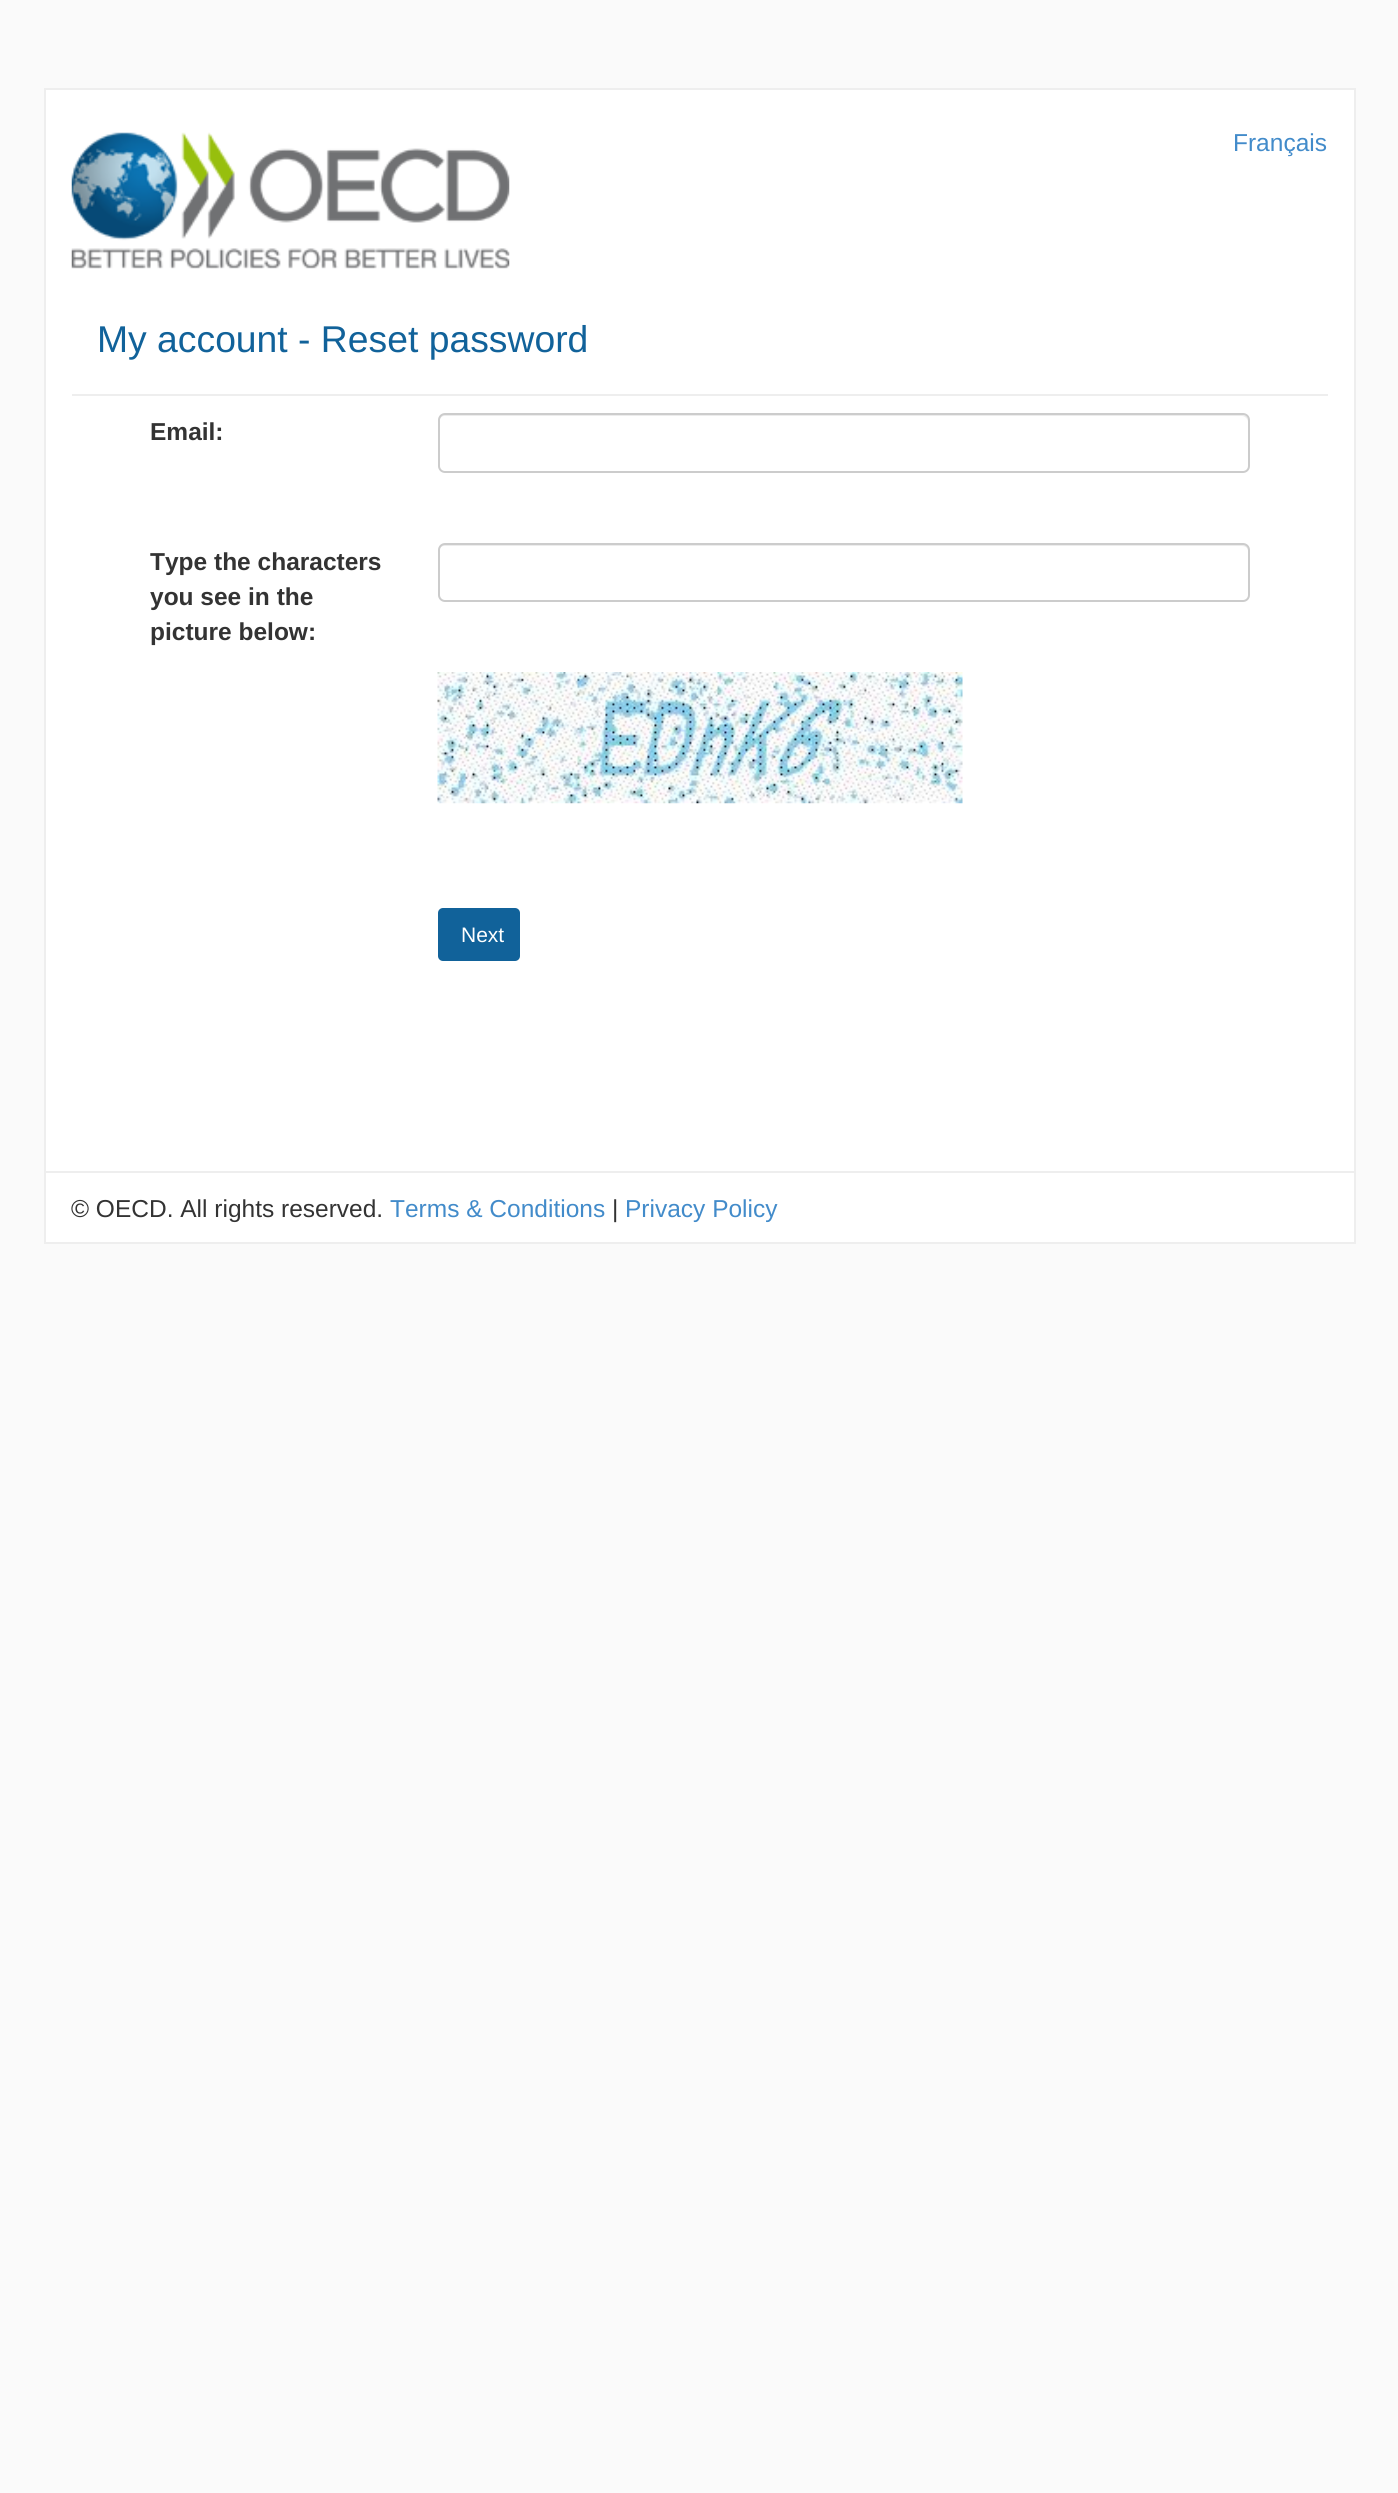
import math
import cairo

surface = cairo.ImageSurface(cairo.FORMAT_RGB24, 1398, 2493)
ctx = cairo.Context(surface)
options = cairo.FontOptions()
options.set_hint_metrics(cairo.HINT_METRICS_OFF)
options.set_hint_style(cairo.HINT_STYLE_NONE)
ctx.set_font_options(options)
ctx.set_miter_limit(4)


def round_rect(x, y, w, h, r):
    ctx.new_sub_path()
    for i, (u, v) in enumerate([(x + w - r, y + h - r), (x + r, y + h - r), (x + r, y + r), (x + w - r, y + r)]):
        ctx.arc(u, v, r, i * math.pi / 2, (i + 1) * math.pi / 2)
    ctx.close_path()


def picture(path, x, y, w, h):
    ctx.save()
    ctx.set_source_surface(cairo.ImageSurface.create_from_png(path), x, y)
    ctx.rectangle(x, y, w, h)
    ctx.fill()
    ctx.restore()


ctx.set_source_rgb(0.98, 0.98, 0.98)
ctx.paint()
ctx.set_source_rgb(1, 1, 1)
ctx.rectangle(45, 89, 1310, 1154)
ctx.fill_preserve()
ctx.set_source_rgb(0.933, 0.933, 0.933)
ctx.stroke()
picture("img1.png", 71, 132, 439, 137)
ctx.select_font_face("Liberation Sans")
ctx.set_font_size(24.5)
ctx.set_source_rgb(0.259, 0.545, 0.792)
ctx.move_to(1233, 151)
ctx.show_text("Français")
ctx.set_source_rgb(0.933, 0.933, 0.933)
ctx.rectangle(46, 1171, 1309, 2)
ctx.fill()
ctx.rectangle(72, 394, 1256, 2)
ctx.fill()
ctx.set_font_size(37.3)
ctx.set_source_rgb(0.067, 0.384, 0.604)
ctx.move_to(97, 352)
ctx.show_text("My account - Reset password")
ctx.select_font_face("Liberation Sans", cairo.FONT_SLANT_NORMAL, cairo.FONT_WEIGHT_BOLD)
ctx.set_font_size(24.5)
ctx.set_source_rgb(0.2, 0.2, 0.2)
ctx.move_to(150, 440)
ctx.show_text("Email:")
ctx.set_source_rgb(0.925, 0.925, 0.925)
ctx.new_path()
ctx.move_to(444, 416)
ctx.line_to(1242, 416)
ctx.curve_to(1245, 416, 1248, 419, 1248, 422)
ctx.line_to(1248, 420)
ctx.curve_to(1248, 417, 1246, 415, 1243, 415)
ctx.line_to(444, 415)
ctx.curve_to(441, 415, 439, 417, 439, 420)
ctx.line_to(439, 422)
ctx.curve_to(439, 419, 442, 416, 444, 416)
ctx.close_path()
ctx.fill()
round_rect(439, 414, 810, 58, 6)
ctx.set_source_rgb(0.8, 0.8, 0.8)
ctx.stroke()
ctx.set_source_rgb(0.2, 0.2, 0.2)
ctx.move_to(150, 570)
ctx.show_text("Type the characters")
ctx.move_to(150, 605)
ctx.show_text("you see in the")
ctx.move_to(150, 640)
ctx.show_text("picture below:")
ctx.set_source_rgb(0.925, 0.925, 0.925)
ctx.new_path()
ctx.move_to(444, 546)
ctx.line_to(1242, 546)
ctx.curve_to(1245, 546, 1248, 548, 1248, 551)
ctx.line_to(1248, 549)
ctx.curve_to(1248, 546, 1246, 544, 1243, 544)
ctx.line_to(444, 544)
ctx.curve_to(441, 544, 439, 546, 439, 549)
ctx.line_to(439, 551)
ctx.curve_to(439, 548, 442, 546, 444, 546)
ctx.close_path()
ctx.fill()
round_rect(439, 544, 810, 57, 6)
ctx.set_source_rgb(0.8, 0.8, 0.8)
ctx.stroke()
picture("img2.png", 437, 672, 526, 132)
ctx.set_source_rgb(0.067, 0.384, 0.604)
round_rect(438, 908, 82, 53, 5)
ctx.fill()
ctx.select_font_face("Liberation Sans")
ctx.set_font_size(21)
ctx.set_source_rgb(1, 1, 1)
ctx.move_to(461, 942)
ctx.show_text("Next")
ctx.set_font_size(24.5)
ctx.set_source_rgb(0.2, 0.2, 0.2)
ctx.move_to(71, 1217)
ctx.show_text("© OECD. All rights reserved.")
ctx.set_source_rgb(0.259, 0.545, 0.792)
ctx.move_to(390, 1217)
ctx.show_text("Terms & Conditions")
ctx.set_source_rgb(0.2, 0.2, 0.2)
ctx.move_to(612, 1217)
ctx.show_text("|")
ctx.set_source_rgb(0.259, 0.545, 0.792)
ctx.move_to(625, 1217)
ctx.show_text("Privacy Policy")
surface.write_to_png("page.png")
